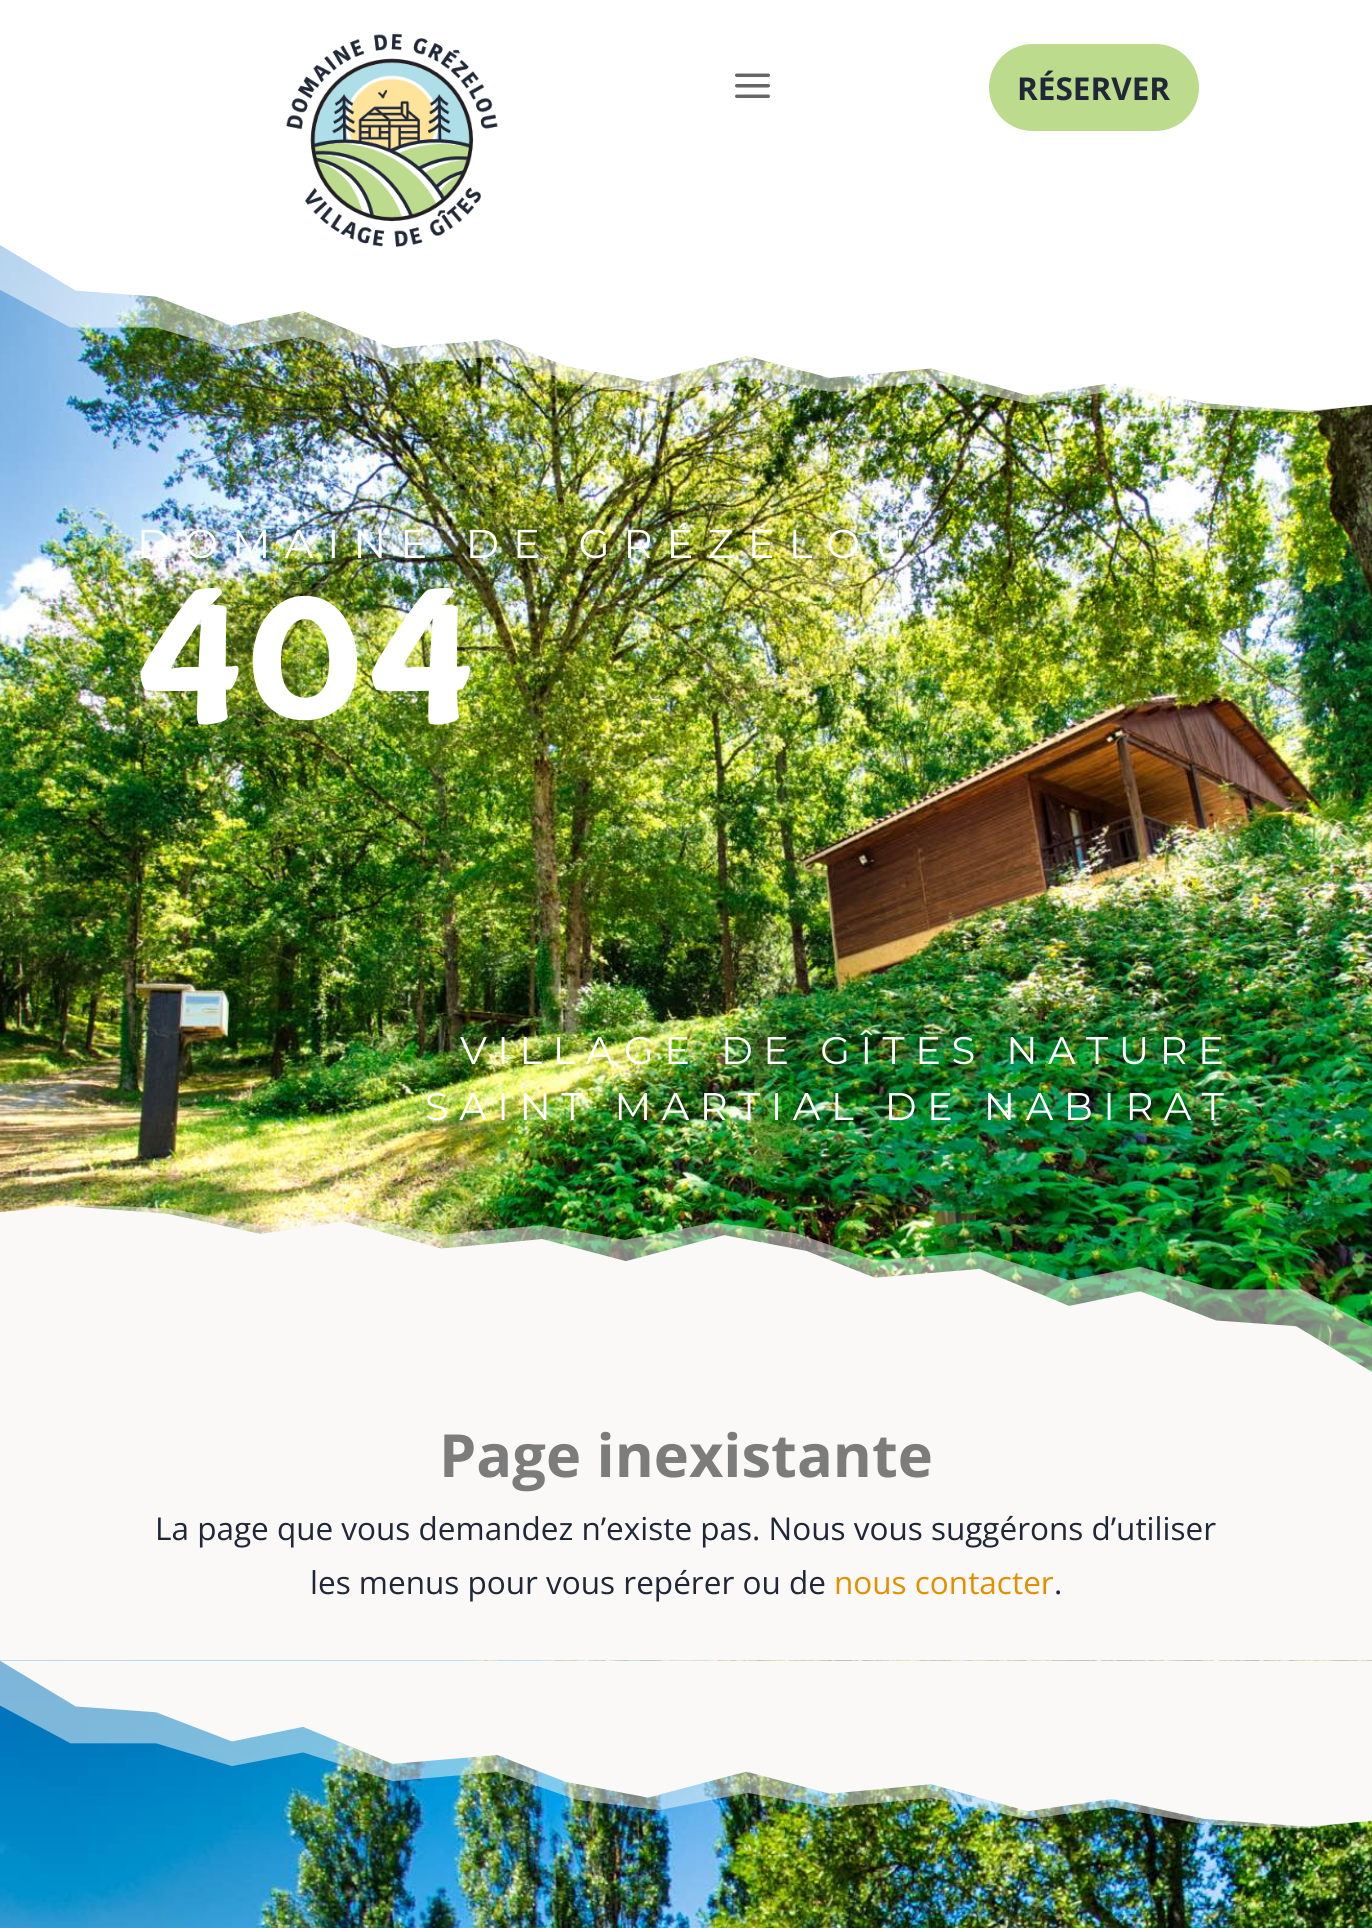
import math
import cairo

surface = cairo.ImageSurface(cairo.FORMAT_RGB24, 1372, 1928)
ctx = cairo.Context(surface)
options = cairo.FontOptions()
options.set_hint_metrics(cairo.HINT_METRICS_OFF)
options.set_hint_style(cairo.HINT_STYLE_NONE)
ctx.set_font_options(options)
ctx.set_miter_limit(4)


def spaced_text(x, y, s, letter, word):
    ctx.move_to(x, y)
    for ch in s:
        ctx.show_text(ch)
        ctx.rel_move_to(letter + word * (ch == ' '), 0)


def round_rect(x, y, w, h, r):
    ctx.new_sub_path()
    for i, (u, v) in enumerate([(x + w - r, y + h - r), (x + r, y + h - r), (x + r, y + r), (x + w - r, y + r)]):
        ctx.arc(u, v, r, i * math.pi / 2, (i + 1) * math.pi / 2)
    ctx.close_path()


def picture(path, x, y, w, h):
    ctx.save()
    ctx.set_source_surface(cairo.ImageSurface.create_from_png(path), x, y)
    ctx.rectangle(x, y, w, h)
    ctx.fill()
    ctx.restore()


ctx.set_source_rgb(1, 1, 1)
ctx.paint()
picture("img3.png", 0, 245, 1372, 1127)
picture("img4.png", 0, 245, 1372, 168)
picture("img1.png", 286, 33, 212, 214)
picture("img2.png", 735, 73, 35, 25)
ctx.set_source_rgb(0.737, 0.859, 0.553)
round_rect(989, 44, 210, 87, 43.5)
ctx.fill()
ctx.select_font_face("Open Sans", cairo.FONT_SLANT_NORMAL, cairo.FONT_WEIGHT_BOLD)
ctx.set_font_size(31.5)
ctx.set_source_rgb(0.125, 0.157, 0.216)
ctx.move_to(1017, 100)
ctx.show_text("RÉSERVER")
ctx.select_font_face("Montserrat")
ctx.set_font_size(40.25)
ctx.set_source_rgb(1, 1, 1)
spaced_text(137, 558, "DOMAINE DE GRÉZÉLOU", 14, 0)
ctx.select_font_face("Bubblegum Sans", cairo.FONT_SLANT_NORMAL, cairo.FONT_WEIGHT_BOLD)
ctx.set_font_size(175)
spaced_text(137, 718, "404", 10.5, 0)
ctx.select_font_face("Montserrat")
ctx.set_font_size(38.5)
spaced_text(460, 1064, "VILLAGE DE GÎTES NATURE", 10.5, 0)
spaced_text(425, 1120, "SAINT MARTIAL DE NABIRAT", 10.5, 0)
picture("img5.png", 0, 1204, 1372, 168)
ctx.set_source_rgb(0.98, 0.976, 0.969)
ctx.rectangle(0, 1372, 1372, 289)
ctx.fill()
ctx.select_font_face("Open Sans", cairo.FONT_SLANT_NORMAL, cairo.FONT_WEIGHT_BOLD)
ctx.set_font_size(59.5)
ctx.set_source_rgb(0.486, 0.486, 0.486)
ctx.move_to(439, 1477)
ctx.show_text("Page inexistante")
ctx.select_font_face("Open Sans")
ctx.set_font_size(31.5)
ctx.set_source_rgb(0.125, 0.157, 0.216)
ctx.move_to(155, 1540)
ctx.show_text("La page que vous demandez n’existe pas. Nous vous suggérons d’utiliser")
ctx.move_to(310, 1594)
ctx.show_text("les menus pour vous repérer ou de")
ctx.set_source_rgb(0.886, 0.561, 0)
ctx.move_to(834, 1594)
ctx.show_text("nous contacter")
ctx.set_source_rgb(0.125, 0.157, 0.216)
ctx.move_to(1054, 1594)
ctx.show_text(".")
picture("img6.png", 0, 1660, 1372, 268)
picture("img7.png", 0, 1661, 1372, 168)
surface.write_to_png("page.png")
